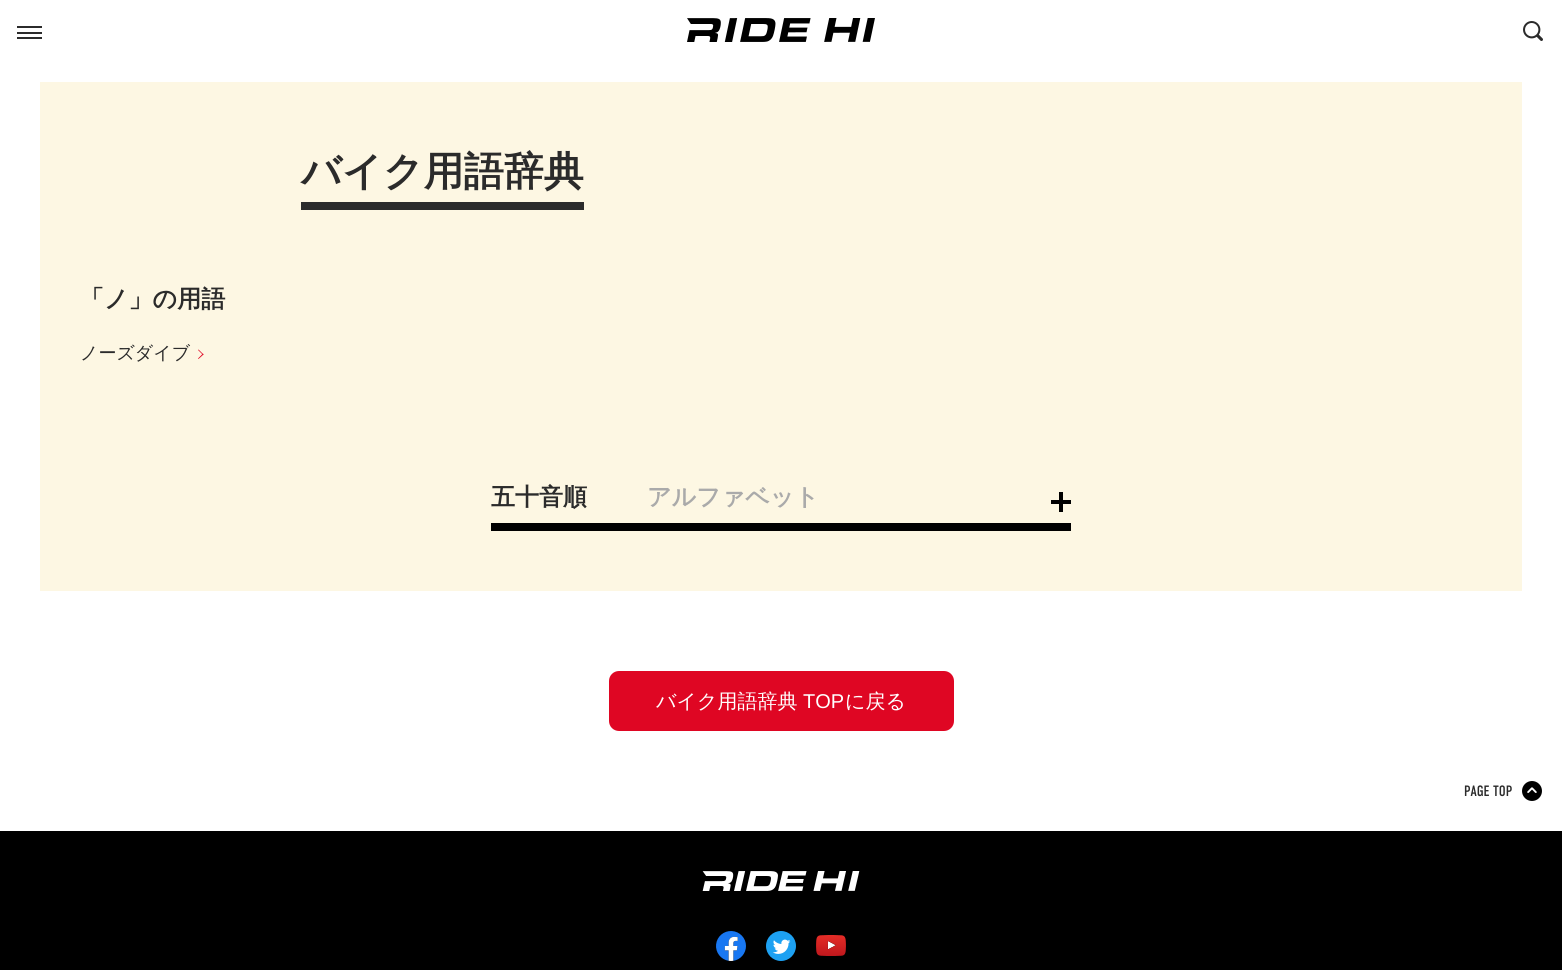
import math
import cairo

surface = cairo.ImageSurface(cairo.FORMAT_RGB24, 1562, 970)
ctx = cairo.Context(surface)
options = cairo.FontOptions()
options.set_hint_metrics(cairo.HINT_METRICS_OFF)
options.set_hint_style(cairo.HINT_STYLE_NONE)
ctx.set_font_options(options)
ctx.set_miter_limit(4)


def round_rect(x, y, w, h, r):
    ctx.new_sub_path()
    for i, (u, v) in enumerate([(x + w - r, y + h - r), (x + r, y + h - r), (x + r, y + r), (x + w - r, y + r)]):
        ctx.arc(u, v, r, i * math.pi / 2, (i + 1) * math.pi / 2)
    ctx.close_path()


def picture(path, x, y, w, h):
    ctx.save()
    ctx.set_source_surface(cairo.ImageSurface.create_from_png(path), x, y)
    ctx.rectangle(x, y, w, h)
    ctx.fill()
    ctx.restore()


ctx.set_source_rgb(1, 1, 1)
ctx.paint()
ctx.set_source_rgb(0.169, 0.169, 0.169)
ctx.rectangle(17, 26, 25, 2)
ctx.fill()
ctx.rectangle(17, 32, 25, 2)
ctx.fill()
ctx.rectangle(17, 37, 25, 2)
ctx.fill()
picture("img1.png", 687, 18, 188, 24)
picture("img2.png", 1523, 21, 20, 20)
ctx.set_source_rgb(0.992, 0.965, 0.89)
ctx.rectangle(40, 82, 1482, 509)
ctx.fill()
ctx.set_source_rgb(0.169, 0.169, 0.169)
ctx.rectangle(301, 202, 283, 8)
ctx.fill()
ctx.select_font_face("WenQuanYi Zen Hei", cairo.FONT_SLANT_NORMAL, cairo.FONT_WEIGHT_BOLD)
ctx.set_font_size(40)
ctx.move_to(301, 185)
ctx.show_text("バイク用語辞典")
ctx.set_font_size(24)
ctx.move_to(80, 307)
ctx.show_text("「ノ」の用語")
ctx.select_font_face("WenQuanYi Zen Hei Medium")
ctx.set_font_size(18)
ctx.move_to(80, 359)
ctx.show_text("ノーズダイブ")
ctx.set_source_rgb(0.875, 0.024, 0.137)
ctx.new_path()
ctx.move_to(198.5, 349.5)
ctx.line_to(203.5, 354.5)
ctx.line_to(203, 355)
ctx.line_to(198, 350)
ctx.close_path()
ctx.fill()
ctx.new_path()
ctx.move_to(203, 353.5)
ctx.line_to(203.5, 354.5)
ctx.line_to(198.5, 359)
ctx.line_to(198, 358.5)
ctx.close_path()
ctx.fill()
ctx.select_font_face("WenQuanYi Zen Hei", cairo.FONT_SLANT_NORMAL, cairo.FONT_WEIGHT_BOLD)
ctx.set_font_size(24)
ctx.set_source_rgb(0.169, 0.169, 0.169)
ctx.move_to(491, 505)
ctx.show_text("五十音順")
ctx.set_source_rgb(0.667, 0.667, 0.667)
ctx.move_to(647, 505)
ctx.show_text("アルファベット")
ctx.set_source_rgb(0, 0, 0)
ctx.rectangle(1051, 500, 20, 4)
ctx.fill()
ctx.rectangle(1059, 492, 4, 20)
ctx.fill()
ctx.rectangle(491, 523, 580, 8)
ctx.fill()
ctx.set_source_rgb(0.875, 0.024, 0.137)
round_rect(610, 672, 343, 58, 9)
ctx.fill_preserve()
ctx.stroke()
ctx.select_font_face("WenQuanYi Zen Hei Medium")
ctx.set_font_size(20)
ctx.set_source_rgb(1, 1, 1)
ctx.move_to(656, 708)
ctx.show_text("バイク用語辞典")
ctx.select_font_face("Liberation Sans")
ctx.move_to(803, 708)
ctx.show_text("TOP")
ctx.select_font_face("WenQuanYi Zen Hei Medium")
ctx.move_to(845, 708)
ctx.show_text("に戻る")
ctx.set_source_rgb(0, 0, 0)
ctx.rectangle(0, 831, 1562, 139)
ctx.fill()
ctx.select_font_face("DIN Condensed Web")
ctx.set_font_size(15)
ctx.set_source_rgb(0.169, 0.169, 0.169)
ctx.move_to(1464, 796)
ctx.show_text("PAGE TOP")
picture("img3.png", 1522, 781, 20, 20)
picture("img4.png", 702, 871, 158, 20)
picture("img5.png", 716, 931, 30, 30)
picture("img6.png", 766, 931, 30, 30)
picture("img7.png", 816, 935, 30, 21)
surface.write_to_png("page.png")
